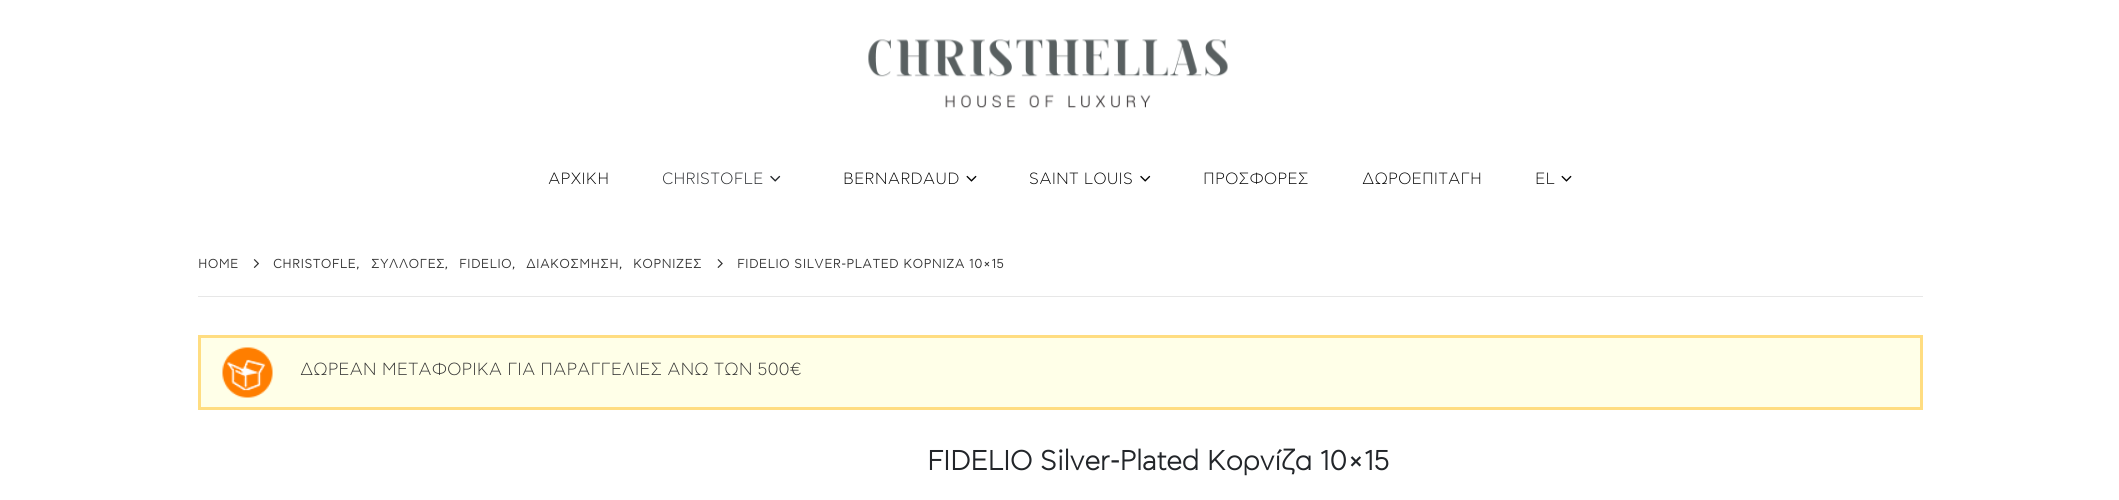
import math
import cairo

surface = cairo.ImageSurface(cairo.FORMAT_RGB24, 2119, 500)
ctx = cairo.Context(surface)
options = cairo.FontOptions()
options.set_hint_metrics(cairo.HINT_METRICS_OFF)
options.set_hint_style(cairo.HINT_STYLE_NONE)
ctx.set_font_options(options)
ctx.set_miter_limit(4)


def spaced_text(x, y, s, letter, word):
    ctx.move_to(x, y)
    for ch in s:
        ctx.show_text(ch)
        ctx.rel_move_to(letter + word * (ch == ' '), 0)


def picture(path, x, y, w, h):
    ctx.save()
    ctx.set_source_surface(cairo.ImageSurface.create_from_png(path), x, y)
    ctx.rectangle(x, y, w, h)
    ctx.fill()
    ctx.restore()


ctx.set_source_rgb(1, 1, 1)
ctx.paint()
picture("img1.png", 868, 39, 360, 69)
ctx.select_font_face("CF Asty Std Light")
ctx.set_font_size(16.25)
ctx.set_source_rgb(0, 0, 0)
spaced_text(548, 184, "ΑΡΧΙΚΗ", 0.1, 0)
ctx.set_source_rgb(0.133, 0.145, 0.161)
spaced_text(662, 184, "CHRISTOFLE", 0.1, 0)
picture("img2.png", 770, 175, 11, 7)
ctx.set_source_rgb(0, 0, 0)
spaced_text(843, 184, "BERNARDAUD", 0.1, 0)
picture("img3.png", 966, 175, 11, 7)
spaced_text(1029, 184, "SAINT LOUIS", 0.1, 0)
picture("img4.png", 1140, 175, 11, 7)
spaced_text(1203, 184, "ΠΡΟΣΦΟΡΕΣ", 0.1, 0)
spaced_text(1362, 184, "ΔΩΡΟΕΠΙΤΑΓΗ", 0.1, 0)
spaced_text(1535, 184, "EL", 0.1, 0)
picture("img3.png", 1561, 175, 11, 7)
ctx.select_font_face("CF Asty Std", cairo.FONT_SLANT_NORMAL, cairo.FONT_WEIGHT_BOLD)
ctx.set_font_size(12.5)
ctx.set_source_rgb(0.196, 0.196, 0.196)
spaced_text(198, 268, "HOME", 0.6, 0)
picture("img5.png", 253, 259, 6, 9)
spaced_text(273, 268, "CHRISTOFLE,", 0.6, 0)
spaced_text(371, 268, "ΣΥΛΛΟΓΕΣ,", 0.6, 0)
spaced_text(459, 268, "FIDELIO,", 0.6, 0)
spaced_text(526, 268, "ΔΙΑΚΟΣΜΗΣΗ,", 0.6, 0)
spaced_text(633, 268, "ΚΟΡΝΙΖΕΣ", 0.6, 0)
picture("img6.png", 717, 259, 6, 9)
spaced_text(737, 268, "FIDELIO SILVER-PLATED ΚΟΡΝΙΖΑ 10×15", 0.6, 0)
ctx.set_source_rgb(0.906, 0.906, 0.906)
ctx.rectangle(198, 296, 1725, 1)
ctx.fill()
ctx.set_source_rgb(1, 1, 0.91)
ctx.rectangle(199.5, 336.5, 1722, 72)
ctx.fill_preserve()
ctx.set_source_rgb(1, 0.867, 0.506)
ctx.set_line_width(3)
ctx.stroke()
picture("img7.png", 222, 347, 51, 51)
ctx.select_font_face("CF Asty Std Light")
ctx.set_font_size(17.5)
ctx.set_source_rgb(0.196, 0.196, 0.196)
ctx.move_to(300, 375)
ctx.show_text("ΔΩΡΕΑΝ ΜΕΤΑΦΟΡΙΚΑ ΓΙΑ ΠΑΡΑΓΓΕΛΙΕΣ ΑΝΩ ΤΩΝ 500€")
ctx.select_font_face("CF Asty Std", cairo.FONT_SLANT_NORMAL, cairo.FONT_WEIGHT_BOLD)
ctx.set_font_size(27.5)
ctx.set_source_rgb(0.133, 0.145, 0.161)
spaced_text(927, 470, "FIDELIO Silver-Plated Κορνίζα 10×15", -0.3, 0)
surface.write_to_png("page.png")
